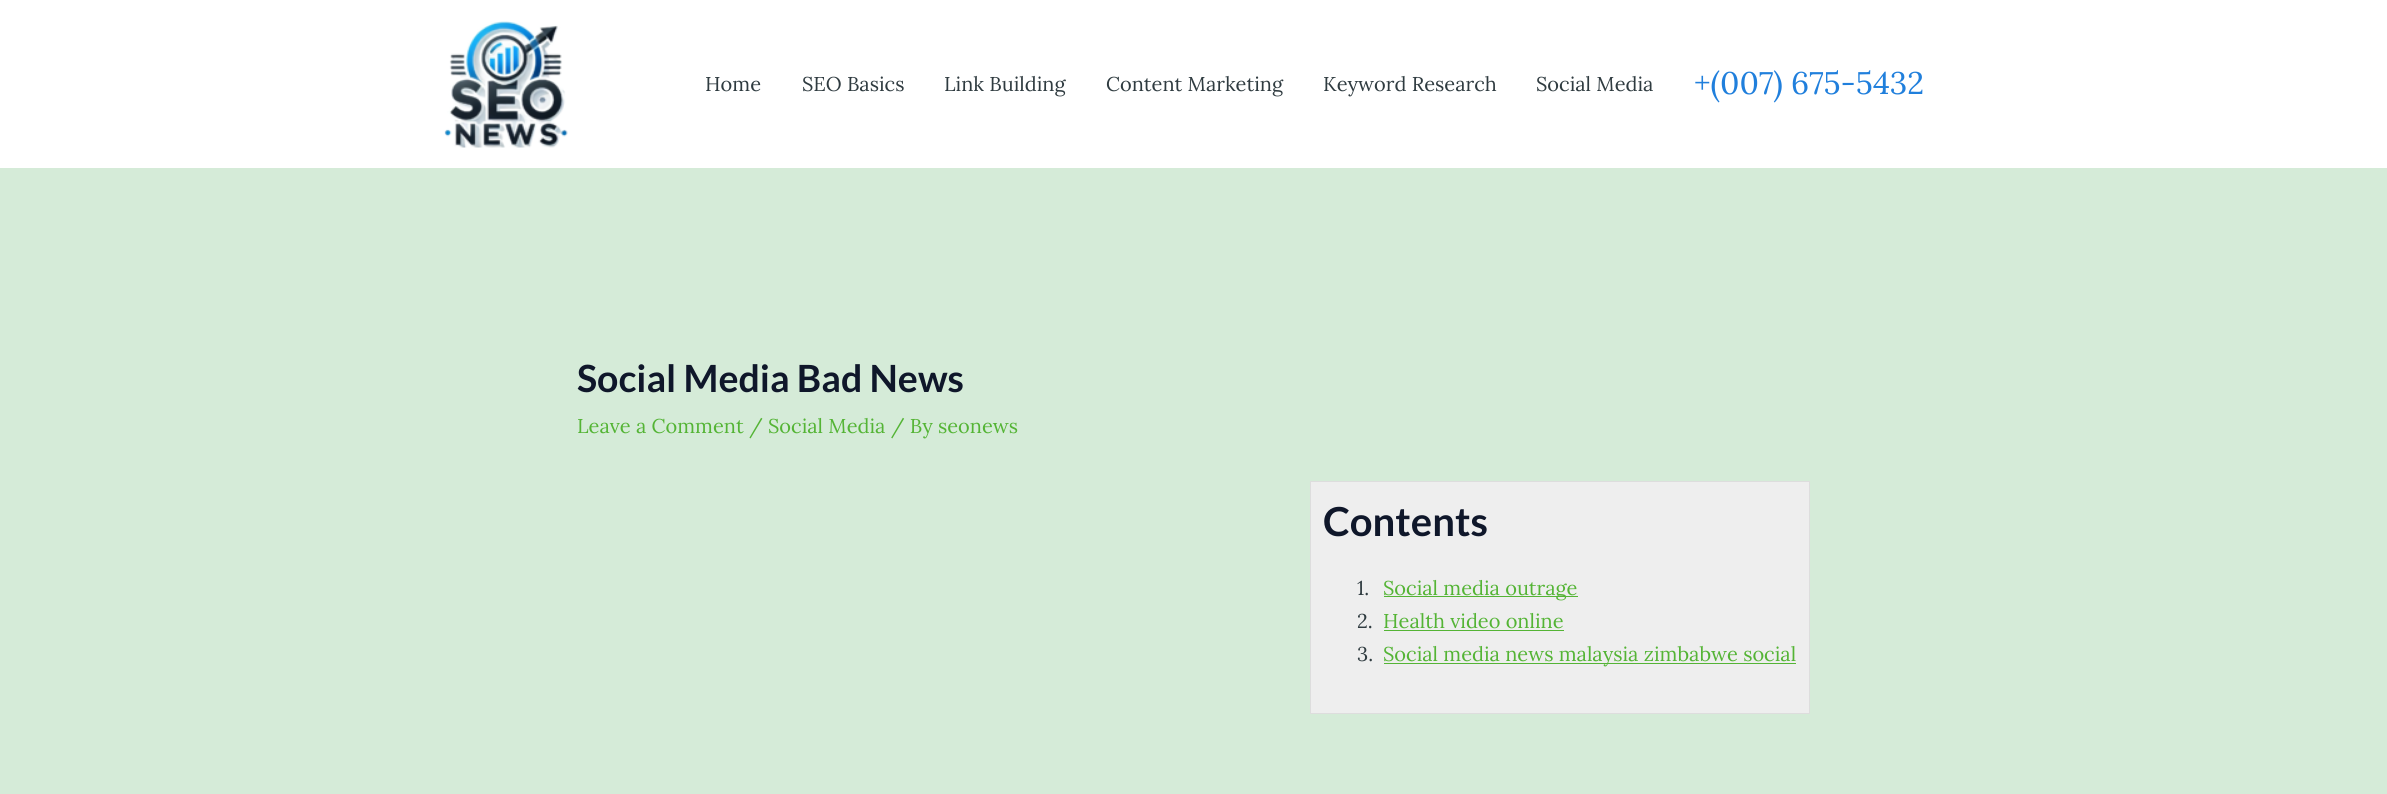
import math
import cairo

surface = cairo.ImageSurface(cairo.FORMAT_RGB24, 2387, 794)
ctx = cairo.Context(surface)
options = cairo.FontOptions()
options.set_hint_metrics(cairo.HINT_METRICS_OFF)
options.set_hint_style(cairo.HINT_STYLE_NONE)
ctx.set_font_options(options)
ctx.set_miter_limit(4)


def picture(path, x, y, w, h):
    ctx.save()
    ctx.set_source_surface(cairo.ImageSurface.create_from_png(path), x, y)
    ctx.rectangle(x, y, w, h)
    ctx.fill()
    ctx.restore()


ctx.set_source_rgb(0.835, 0.918, 0.847)
ctx.paint()
ctx.set_source_rgb(1, 1, 1)
ctx.rectangle(0, 0, 2387, 168)
ctx.fill()
picture("img1.png", 444, 21, 124, 127)
ctx.select_font_face("Lora")
ctx.set_font_size(20)
ctx.set_source_rgb(0.184, 0.231, 0.251)
ctx.move_to(705, 91)
ctx.show_text("Home")
ctx.move_to(802, 91)
ctx.show_text("SEO Basics")
ctx.move_to(944, 91)
ctx.show_text("Link Building")
ctx.move_to(1106, 91)
ctx.show_text("Content Marketing")
ctx.move_to(1323, 91)
ctx.show_text("Keyword Research")
ctx.move_to(1536, 91)
ctx.show_text("Social Media")
ctx.set_font_size(31.25)
ctx.set_source_rgb(0.125, 0.498, 0.863)
ctx.move_to(1694, 94)
ctx.show_text("+(007) 675-5432")
ctx.select_font_face("Lato", cairo.FONT_SLANT_NORMAL, cairo.FONT_WEIGHT_BOLD)
ctx.set_font_size(37.5)
ctx.set_source_rgb(0.059, 0.09, 0.165)
ctx.move_to(577, 392)
ctx.show_text("Social Media Bad News")
ctx.select_font_face("Lora")
ctx.set_font_size(20)
ctx.set_source_rgb(0.329, 0.706, 0.208)
ctx.move_to(577, 433)
ctx.show_text("Leave a Comment / Social Media / By seonews")
ctx.set_source_rgb(0.933, 0.933, 0.933)
ctx.rectangle(1310.5, 481.5, 499, 232)
ctx.fill_preserve()
ctx.set_source_rgb(0.867, 0.867, 0.867)
ctx.set_line_width(1)
ctx.stroke()
ctx.select_font_face("Lato", cairo.FONT_SLANT_NORMAL, cairo.FONT_WEIGHT_BOLD)
ctx.set_font_size(40)
ctx.set_source_rgb(0.059, 0.09, 0.165)
ctx.move_to(1323, 536)
ctx.show_text("Contents")
ctx.select_font_face("Lora")
ctx.set_font_size(20)
ctx.set_source_rgb(0.184, 0.231, 0.251)
ctx.move_to(1357, 595)
ctx.show_text("1.")
ctx.set_source_rgb(0.329, 0.706, 0.208)
ctx.rectangle(1384, 596, 194, 1)
ctx.fill()
ctx.move_to(1383, 595)
ctx.show_text("Social media outrage")
ctx.set_source_rgb(0.184, 0.231, 0.251)
ctx.move_to(1357, 628)
ctx.show_text("2.")
ctx.set_source_rgb(0.329, 0.706, 0.208)
ctx.move_to(1383, 628)
ctx.show_text("Health video online")
ctx.rectangle(1384, 630, 180, 1)
ctx.fill()
ctx.set_source_rgb(0.184, 0.231, 0.251)
ctx.move_to(1357, 661)
ctx.show_text("3.")
ctx.set_source_rgb(0.329, 0.706, 0.208)
ctx.rectangle(1384, 663, 412, 1)
ctx.fill()
ctx.move_to(1383, 661)
ctx.show_text("Social media news malaysia zimbabwe social")
surface.write_to_png("page.png")
